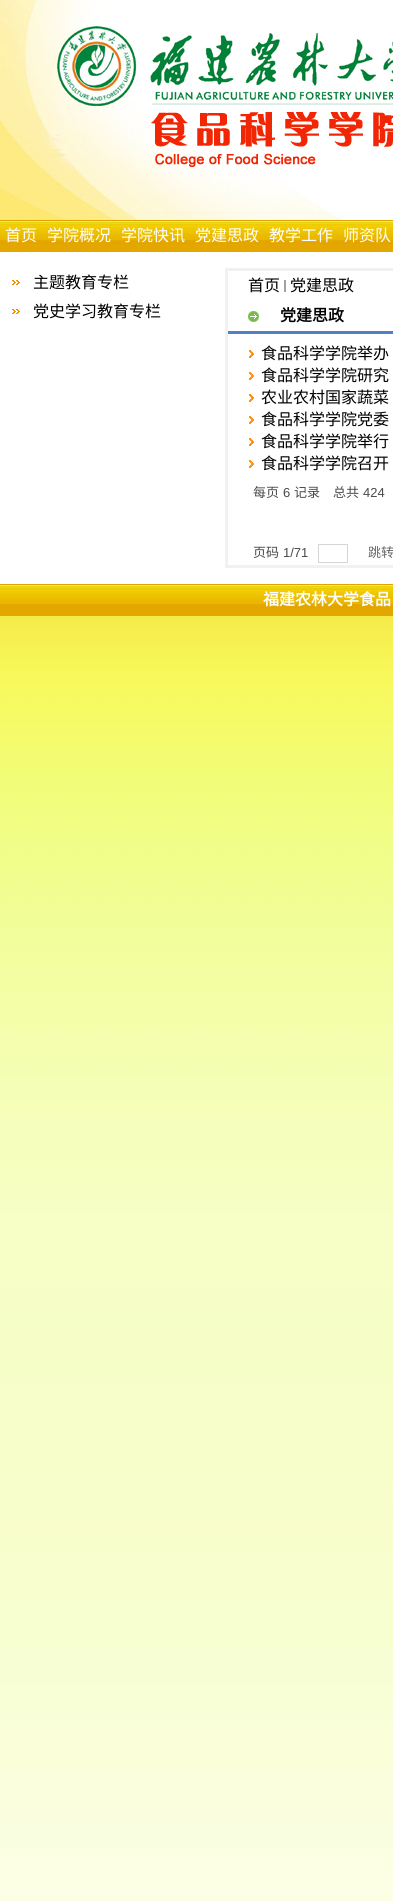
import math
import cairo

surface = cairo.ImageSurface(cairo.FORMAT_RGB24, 393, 1901)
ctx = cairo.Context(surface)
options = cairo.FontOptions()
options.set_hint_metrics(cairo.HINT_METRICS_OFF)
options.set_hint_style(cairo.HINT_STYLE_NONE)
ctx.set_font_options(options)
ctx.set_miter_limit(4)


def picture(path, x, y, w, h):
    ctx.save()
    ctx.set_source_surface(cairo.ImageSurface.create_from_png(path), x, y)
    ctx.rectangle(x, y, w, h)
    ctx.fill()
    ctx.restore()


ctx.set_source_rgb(1, 1, 1)
ctx.paint()
picture("img1.png", 0, 616, 393, 1285)
picture("img2.png", 0, 0, 393, 220)
picture("img3.png", 0, 220, 393, 32)
ctx.select_font_face("Noto Sans CJK SC")
ctx.set_font_size(16)
ctx.set_source_rgb(1, 1, 1)
ctx.move_to(5, 241)
ctx.show_text("首页")
ctx.move_to(47, 241)
ctx.show_text("学院概况")
ctx.move_to(121, 241)
ctx.show_text("学院快讯")
ctx.move_to(195, 241)
ctx.show_text("党建思政")
ctx.move_to(269, 241)
ctx.show_text("教学工作")
ctx.move_to(343, 241)
ctx.show_text("师资队")
picture("img4.png", 12, 280, 8, 5)
ctx.set_source_rgb(0, 0, 0)
ctx.move_to(33, 288)
ctx.show_text("主题教育专栏")
picture("img4.png", 12, 309, 8, 5)
ctx.move_to(33, 317)
ctx.show_text("党史学习教育专栏")
ctx.set_source_rgb(0.945, 0.945, 0.945)
ctx.rectangle(225, 268, 168, 3)
ctx.fill()
ctx.rectangle(225, 565, 168, 3)
ctx.fill()
ctx.rectangle(225, 268, 3, 300)
ctx.fill()
ctx.set_source_rgb(0, 0, 0)
ctx.move_to(248, 291)
ctx.show_text("首页")
ctx.set_source_rgb(0.635, 0.635, 0.635)
ctx.rectangle(284, 280, 2, 12)
ctx.fill()
ctx.set_source_rgb(0, 0, 0)
ctx.move_to(290, 291)
ctx.show_text("党建思政")
picture("img5.png", 248, 311, 11, 11)
ctx.select_font_face("Noto Sans CJK SC", cairo.FONT_SLANT_NORMAL, cairo.FONT_WEIGHT_BOLD)
ctx.move_to(280, 321)
ctx.show_text("党建思政")
ctx.set_source_rgb(0.322, 0.498, 0.776)
ctx.rectangle(228, 331, 165, 3)
ctx.fill()
picture("img6.png", 249, 350, 5, 8)
ctx.select_font_face("Noto Sans CJK SC")
ctx.set_source_rgb(0, 0, 0)
ctx.move_to(261, 359)
ctx.show_text("食品科学学院举办")
picture("img6.png", 249, 372, 5, 8)
ctx.move_to(261, 381)
ctx.show_text("食品科学学院研究")
picture("img6.png", 249, 394, 5, 8)
ctx.move_to(261, 403)
ctx.show_text("农业农村国家蔬菜")
picture("img6.png", 249, 416, 5, 8)
ctx.move_to(261, 425)
ctx.show_text("食品科学学院党委")
picture("img6.png", 249, 438, 5, 8)
ctx.move_to(261, 447)
ctx.show_text("食品科学学院举行")
picture("img6.png", 249, 460, 5, 8)
ctx.move_to(261, 469)
ctx.show_text("食品科学学院召开")
ctx.set_font_size(13)
ctx.set_source_rgb(0.286, 0.286, 0.286)
ctx.move_to(253, 497)
ctx.show_text("每页")
ctx.select_font_face("Liberation Sans")
ctx.move_to(283, 497)
ctx.show_text("6")
ctx.select_font_face("Noto Sans CJK SC")
ctx.move_to(294, 497)
ctx.show_text("记录")
ctx.move_to(333, 497)
ctx.show_text("总共")
ctx.select_font_face("Liberation Sans")
ctx.move_to(363, 497)
ctx.show_text("424")
ctx.select_font_face("Noto Sans CJK SC")
ctx.move_to(253, 557)
ctx.show_text("页码")
ctx.select_font_face("Liberation Sans")
ctx.move_to(283, 557)
ctx.show_text("1/71")
ctx.rectangle(318.5, 544.5, 29, 18)
ctx.set_source_rgb(0.835, 0.835, 0.835)
ctx.set_line_width(1)
ctx.stroke()
ctx.select_font_face("Noto Sans CJK SC")
ctx.set_source_rgb(0.4, 0.4, 0.4)
ctx.move_to(368, 557)
ctx.show_text("跳转")
picture("img3.png", 0, 584, 393, 32)
ctx.select_font_face("Noto Sans CJK SC", cairo.FONT_SLANT_NORMAL, cairo.FONT_WEIGHT_BOLD)
ctx.set_font_size(16)
ctx.set_source_rgb(1, 1, 1)
ctx.move_to(263, 605)
ctx.show_text("福建农林大学食品")
surface.write_to_png("page.png")
